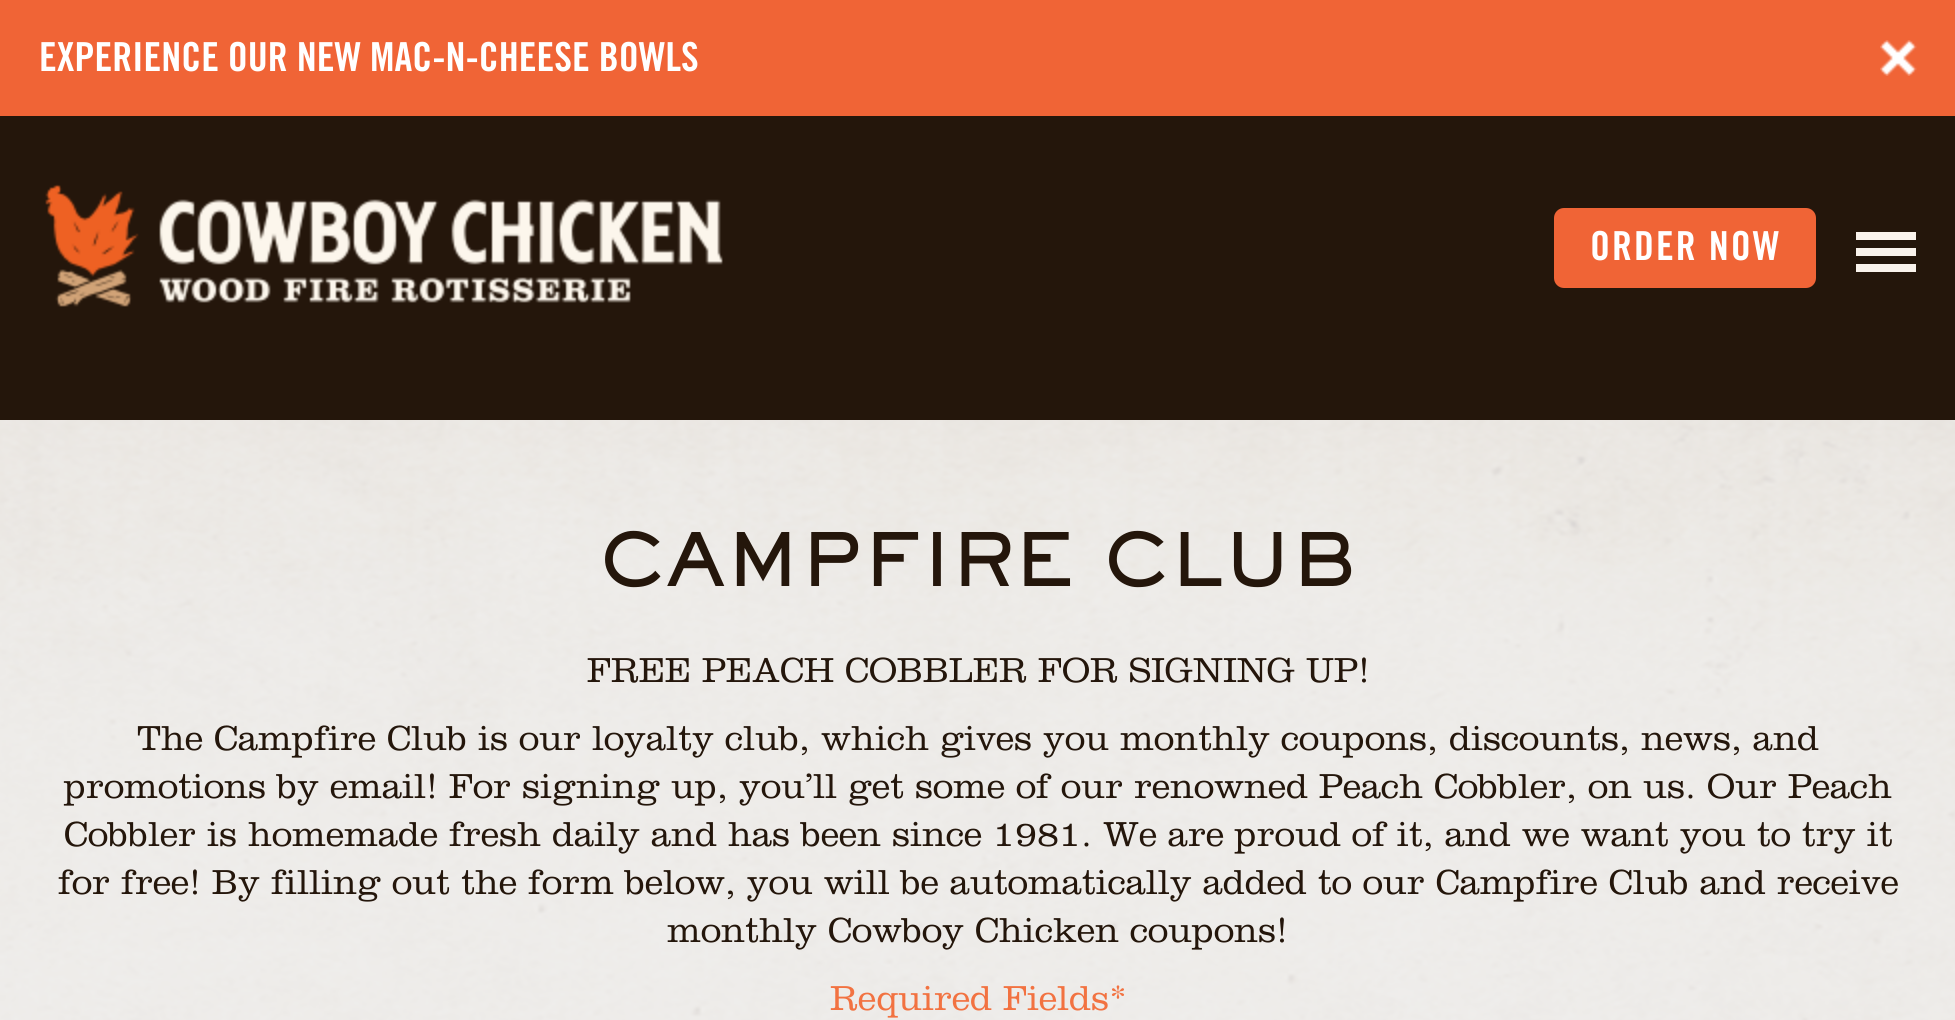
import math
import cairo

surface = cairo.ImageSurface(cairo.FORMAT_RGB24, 1955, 1020)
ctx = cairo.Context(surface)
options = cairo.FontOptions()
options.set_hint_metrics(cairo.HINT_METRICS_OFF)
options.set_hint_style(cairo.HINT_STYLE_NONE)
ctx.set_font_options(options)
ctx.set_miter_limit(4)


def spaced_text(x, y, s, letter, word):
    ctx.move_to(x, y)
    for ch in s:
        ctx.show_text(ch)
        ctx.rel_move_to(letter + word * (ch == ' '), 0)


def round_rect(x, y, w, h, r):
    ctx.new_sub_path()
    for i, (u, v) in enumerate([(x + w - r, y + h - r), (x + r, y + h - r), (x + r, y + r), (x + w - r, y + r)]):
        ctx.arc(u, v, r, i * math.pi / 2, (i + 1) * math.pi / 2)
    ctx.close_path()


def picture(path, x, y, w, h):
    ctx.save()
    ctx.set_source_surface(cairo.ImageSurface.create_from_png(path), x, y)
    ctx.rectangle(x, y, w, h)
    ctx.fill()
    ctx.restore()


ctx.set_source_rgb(1, 1, 1)
ctx.paint()
ctx.set_source_rgb(0.941, 0.392, 0.212)
ctx.rectangle(0, 0, 1955, 116)
ctx.fill()
ctx.select_font_face("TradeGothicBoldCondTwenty", cairo.FONT_SLANT_NORMAL, cairo.FONT_WEIGHT_BOLD)
ctx.set_font_size(40)
ctx.set_source_rgb(1, 1, 1)
ctx.move_to(39, 71)
ctx.show_text("EXPERIENCE OUR NEW MAC-N-CHEESE BOWLS")
picture("img1.png", 1880, 40, 37, 36)
ctx.set_source_rgb(0.141, 0.086, 0.043)
ctx.rectangle(0, 116, 1955, 304)
ctx.fill()
picture("img2.png", 45, 184, 678, 123)
ctx.set_source_rgb(0.941, 0.392, 0.212)
round_rect(1554, 208, 262, 80, 10)
ctx.fill()
ctx.set_source_rgb(1, 1, 1)
spaced_text(1590, 260, "ORDER NOW", 2, 0)
ctx.set_source_rgb(0.98, 0.953, 0.922)
ctx.rectangle(1856, 232, 60, 8)
ctx.fill()
ctx.rectangle(1856, 248, 60, 8)
ctx.fill()
ctx.rectangle(1856, 264, 60, 8)
ctx.fill()
picture("img3.png", 0, 420, 1955, 600)
ctx.select_font_face("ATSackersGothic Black")
ctx.set_font_size(72)
ctx.set_source_rgb(0.141, 0.086, 0.043)
ctx.move_to(599, 586)
ctx.show_text("CAMPFIRE CLUB")
ctx.select_font_face("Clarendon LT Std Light")
ctx.set_font_size(36)
ctx.move_to(587, 682)
ctx.show_text("FREE PEACH COBBLER FOR SIGNING UP!")
ctx.move_to(137, 750)
ctx.show_text("The Campfire Club is our loyalty club, which gives you monthly coupons, discounts, news, and")
ctx.move_to(64, 798)
ctx.show_text("promotions by email! For signing up, you’ll get some of our renowned Peach Cobbler, on us. Our Peach")
ctx.move_to(64, 846)
ctx.show_text("Cobbler is homemade fresh daily and has been since 1981. We are proud of it, and we want you to try it")
ctx.move_to(58, 894)
ctx.show_text("for free! By filling out the form below, you will be automatically added to our Campfire Club and receive")
ctx.move_to(667, 942)
ctx.show_text("monthly Cowboy Chicken coupons!")
ctx.set_source_rgb(0.949, 0.447, 0.255)
ctx.move_to(830, 1010)
ctx.show_text("Required Fields*")
surface.write_to_png("page.png")
